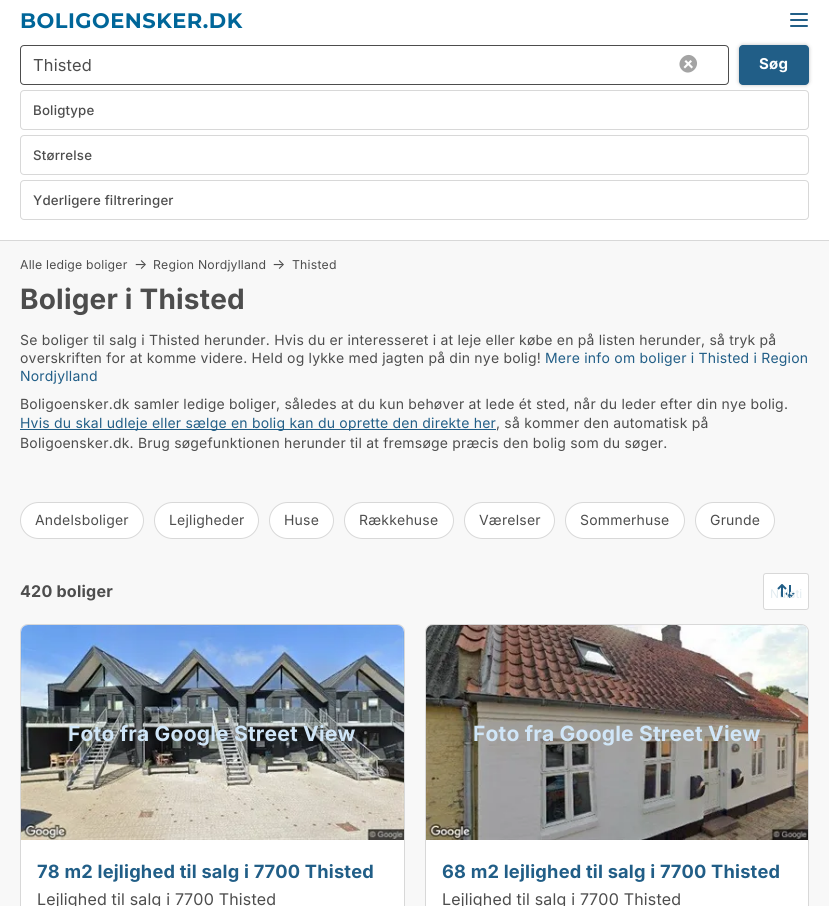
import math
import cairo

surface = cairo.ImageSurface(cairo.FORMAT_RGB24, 829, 906)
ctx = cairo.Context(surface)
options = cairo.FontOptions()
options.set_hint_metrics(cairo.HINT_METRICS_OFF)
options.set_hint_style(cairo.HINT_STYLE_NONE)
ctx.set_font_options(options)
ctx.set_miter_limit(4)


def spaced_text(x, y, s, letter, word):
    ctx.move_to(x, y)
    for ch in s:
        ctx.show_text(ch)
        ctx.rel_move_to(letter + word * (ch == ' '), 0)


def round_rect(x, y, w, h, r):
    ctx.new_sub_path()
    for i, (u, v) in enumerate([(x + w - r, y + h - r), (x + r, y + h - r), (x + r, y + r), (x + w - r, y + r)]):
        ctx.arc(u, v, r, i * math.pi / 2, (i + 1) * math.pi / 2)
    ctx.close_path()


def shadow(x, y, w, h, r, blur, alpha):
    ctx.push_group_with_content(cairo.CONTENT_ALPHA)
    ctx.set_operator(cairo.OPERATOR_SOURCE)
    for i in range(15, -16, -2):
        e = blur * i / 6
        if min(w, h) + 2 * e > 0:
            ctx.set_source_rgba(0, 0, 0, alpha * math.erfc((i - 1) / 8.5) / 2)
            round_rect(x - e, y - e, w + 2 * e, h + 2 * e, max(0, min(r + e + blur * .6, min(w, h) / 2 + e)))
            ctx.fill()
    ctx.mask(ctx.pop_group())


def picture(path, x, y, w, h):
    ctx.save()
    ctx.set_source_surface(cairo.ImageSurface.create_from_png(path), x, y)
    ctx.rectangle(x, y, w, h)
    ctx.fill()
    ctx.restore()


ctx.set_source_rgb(1, 1, 1)
ctx.paint()
ctx.select_font_face("Montserrat", cairo.FONT_SLANT_NORMAL, cairo.FONT_WEIGHT_BOLD)
ctx.set_font_size(21)
ctx.set_source_rgb(0, 0.4, 0.6)
spaced_text(20, 28, "BOLIGOENSKER.DK", 0.5, 0)
ctx.set_source_rgb(0.129, 0.369, 0.529)
round_rect(790, 13, 18, 2, 1)
ctx.fill()
round_rect(790, 19, 18, 2, 1)
ctx.fill()
round_rect(790, 25, 18, 2, 1)
ctx.fill()
ctx.set_source_rgb(0.969, 0.969, 0.969)
ctx.rectangle(0, 241, 829, 665)
ctx.fill()
ctx.set_source_rgb(0.847, 0.847, 0.847)
ctx.rectangle(0, 240, 829, 1)
ctx.fill()
round_rect(20.5, 45.5, 708, 39, 3.5)
ctx.set_source_rgb(0.302, 0.302, 0.302)
ctx.set_line_width(1)
ctx.stroke()
ctx.select_font_face("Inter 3")
ctx.set_font_size(16.5)
spaced_text(33, 71, "Thisted", 0.2, 0)
ctx.set_source_rgb(0.643, 0.643, 0.643)
ctx.new_path()
ctx.move_to(694.5, 57.5)
ctx.curve_to(702.5, 65.5, 690, 78, 682, 70)
ctx.curve_to(674, 62, 686.5, 49.5, 694.5, 57.5)
ctx.close_path()
ctx.fill()
ctx.set_source_rgb(1, 1, 1)
ctx.new_path()
ctx.move_to(686, 60)
ctx.line_to(693, 67)
ctx.line_to(691.5, 68.5)
ctx.line_to(684.5, 61.5)
ctx.close_path()
ctx.fill()
ctx.new_path()
ctx.move_to(690.5, 60)
ctx.line_to(692, 61.5)
ctx.line_to(685, 68.5)
ctx.line_to(683.5, 67)
ctx.close_path()
ctx.fill()
ctx.set_source_rgb(0, 0, 0)
shadow(739, 45, 70, 40, 4, 2, 0.25)
ctx.set_source_rgb(0.129, 0.369, 0.529)
round_rect(739, 45, 70, 40, 4)
ctx.fill()
ctx.select_font_face("Inter", cairo.FONT_SLANT_NORMAL, cairo.FONT_WEIGHT_BOLD)
ctx.set_font_size(15)
ctx.set_source_rgb(1, 1, 1)
spaced_text(759, 69, "Søg", 0.2, 0)
round_rect(20.5, 90.5, 788, 39, 3.5)
ctx.set_source_rgb(0.847, 0.847, 0.847)
ctx.stroke()
ctx.select_font_face("Inter Medium")
ctx.set_font_size(13.25)
ctx.set_source_rgb(0.302, 0.302, 0.302)
spaced_text(33, 115, "Boligtype", 0.2, 0)
round_rect(20.5, 135.5, 788, 39, 3.5)
ctx.set_source_rgb(0.847, 0.847, 0.847)
ctx.stroke()
ctx.set_source_rgb(0.302, 0.302, 0.302)
spaced_text(33, 160, "Størrelse", 0.2, 0)
round_rect(20.5, 180.5, 788, 39, 3.5)
ctx.set_source_rgb(0.847, 0.847, 0.847)
ctx.stroke()
ctx.set_source_rgb(0.302, 0.302, 0.302)
spaced_text(33, 205, "Yderligere filtreringer", 0.2, 0)
ctx.select_font_face("Inter")
ctx.set_font_size(12.25)
spaced_text(20, 269, "Alle ledige boliger", 0.2, 0)
ctx.set_font_size(14)
spaced_text(134, 269, "→", 0.2, 0)
ctx.set_font_size(12.25)
spaced_text(153, 269, "Region Nordjylland", 0.2, 0)
ctx.set_font_size(14)
spaced_text(272, 269, "→", 0.2, 0)
ctx.set_font_size(12.25)
spaced_text(292, 269, "Thisted", 0.2, 0)
ctx.select_font_face("Inter", cairo.FONT_SLANT_NORMAL, cairo.FONT_WEIGHT_BOLD)
ctx.set_font_size(28)
spaced_text(20, 309, "Boliger i Thisted", 0.2, 0)
ctx.select_font_face("Inter")
ctx.set_font_size(14)
spaced_text(20, 345, "Se boliger til salg i Thisted herunder. Hvis du er interesseret i at leje eller købe en på listen herunder, så tryk på", 0.2, 0)
spaced_text(20, 363, "overskriften for at komme videre. Held og lykke med jagten på din nye bolig!", 0.2, 0)
ctx.set_source_rgb(0.129, 0.369, 0.529)
spaced_text(545, 363, "Mere info om boliger i Thisted i Region", 0.2, 0)
spaced_text(20, 381, "Nordjylland", 0.2, 0)
ctx.set_source_rgb(0.302, 0.302, 0.302)
spaced_text(20, 409, "Boligoensker.dk samler ledige boliger, således at du kun behøver at lede ét sted, når du leder efter din nye bolig.", 0.2, 0)
ctx.set_source_rgb(0.129, 0.369, 0.529)
ctx.rectangle(20, 429, 476, 1)
ctx.fill()
spaced_text(20, 428, "Hvis du skal udleje eller sælge en bolig kan du oprette den direkte her", 0.2, 0)
ctx.set_source_rgb(0.302, 0.302, 0.302)
spaced_text(496, 428, ", så kommer den automatisk på", 0.2, 0)
spaced_text(20, 448, "Boligoensker.dk. Brug søgefunktionen herunder til at fremsøge præcis den bolig som du søger.", 0.2, 0)
ctx.set_source_rgb(1, 1, 1)
round_rect(20.5, 502.5, 123, 36, 18)
ctx.fill_preserve()
ctx.set_source_rgb(0.847, 0.847, 0.847)
ctx.stroke()
ctx.set_source_rgb(0.302, 0.302, 0.302)
spaced_text(35, 525, "Andelsboliger", 0.2, 0)
ctx.set_source_rgb(1, 1, 1)
round_rect(154.5, 502.5, 104, 36, 18)
ctx.fill_preserve()
ctx.set_source_rgb(0.847, 0.847, 0.847)
ctx.stroke()
ctx.set_source_rgb(0.302, 0.302, 0.302)
spaced_text(169, 525, "Lejligheder", 0.2, 0)
ctx.set_source_rgb(1, 1, 1)
round_rect(269.5, 502.5, 64, 36, 18)
ctx.fill_preserve()
ctx.set_source_rgb(0.847, 0.847, 0.847)
ctx.stroke()
ctx.set_source_rgb(0.302, 0.302, 0.302)
spaced_text(284, 525, "Huse", 0.2, 0)
ctx.set_source_rgb(1, 1, 1)
round_rect(344.5, 502.5, 109, 36, 18)
ctx.fill_preserve()
ctx.set_source_rgb(0.847, 0.847, 0.847)
ctx.stroke()
ctx.set_source_rgb(0.302, 0.302, 0.302)
spaced_text(359, 525, "Rækkehuse", 0.2, 0)
ctx.set_source_rgb(1, 1, 1)
round_rect(464.5, 502.5, 90, 36, 18)
ctx.fill_preserve()
ctx.set_source_rgb(0.847, 0.847, 0.847)
ctx.stroke()
ctx.set_source_rgb(0.302, 0.302, 0.302)
spaced_text(479, 525, "Værelser", 0.2, 0)
ctx.set_source_rgb(1, 1, 1)
round_rect(565.5, 502.5, 119, 36, 18)
ctx.fill_preserve()
ctx.set_source_rgb(0.847, 0.847, 0.847)
ctx.stroke()
ctx.set_source_rgb(0.302, 0.302, 0.302)
spaced_text(580, 525, "Sommerhuse", 0.2, 0)
ctx.set_source_rgb(1, 1, 1)
round_rect(695.5, 502.5, 79, 36, 18)
ctx.fill_preserve()
ctx.set_source_rgb(0.847, 0.847, 0.847)
ctx.stroke()
ctx.set_source_rgb(0.302, 0.302, 0.302)
spaced_text(710, 525, "Grunde", 0.2, 0)
ctx.select_font_face("Inter", cairo.FONT_SLANT_NORMAL, cairo.FONT_WEIGHT_BOLD)
ctx.set_font_size(16.1)
spaced_text(20, 597, "420 boliger", 0.2, 0)
ctx.set_source_rgb(1, 1, 1)
round_rect(763.5, 573.5, 45, 36, 2.5)
ctx.fill_preserve()
ctx.set_source_rgb(0.847, 0.847, 0.847)
ctx.stroke()
picture("img1.png", 777, 584, 18, 14)
ctx.select_font_face("Inter")
ctx.set_font_size(12)
ctx.set_source_rgb(0.89, 0.922, 0.941)
ctx.move_to(770, 598)
ctx.show_text("Nulsti")
ctx.set_source_rgb(1, 1, 1)
round_rect(20.5, 624.5, 384, 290, 7.5)
ctx.fill_preserve()
ctx.set_source_rgb(0.847, 0.847, 0.847)
ctx.stroke()
picture("img2.png", 21, 625, 383, 215)
ctx.select_font_face("Inter", cairo.FONT_SLANT_NORMAL, cairo.FONT_WEIGHT_BOLD)
ctx.set_font_size(21)
ctx.set_source_rgb(0.816, 0.902, 0.969)
spaced_text(68, 741, "Foto fra Google Street View", 0.2, 0)
ctx.set_font_size(18.25)
ctx.set_source_rgb(0.129, 0.369, 0.529)
spaced_text(37, 878, "78 m2 lejlighed til salg i 7700 Thisted", 0.2, 0)
ctx.select_font_face("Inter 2")
ctx.set_font_size(16.1)
ctx.set_source_rgb(0.302, 0.302, 0.302)
spaced_text(37, 905, "Lejlighed til salg i 7700 Thisted", 0.2, 0)
ctx.set_source_rgb(1, 1, 1)
round_rect(425.5, 624.5, 383, 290, 7.5)
ctx.fill_preserve()
ctx.set_source_rgb(0.847, 0.847, 0.847)
ctx.stroke()
picture("img3.png", 426, 625, 382, 215)
ctx.select_font_face("Inter", cairo.FONT_SLANT_NORMAL, cairo.FONT_WEIGHT_BOLD)
ctx.set_font_size(21)
ctx.set_source_rgb(0.816, 0.902, 0.969)
spaced_text(473, 741, "Foto fra Google Street View", 0.2, 0)
ctx.set_font_size(18.25)
ctx.set_source_rgb(0.129, 0.369, 0.529)
spaced_text(442, 878, "68 m2 lejlighed til salg i 7700 Thisted", 0.2, 0)
ctx.select_font_face("Inter 2")
ctx.set_font_size(16.1)
ctx.set_source_rgb(0.302, 0.302, 0.302)
spaced_text(442, 905, "Lejlighed til salg i 7700 Thisted", 0.2, 0)
surface.write_to_png("page.png")
